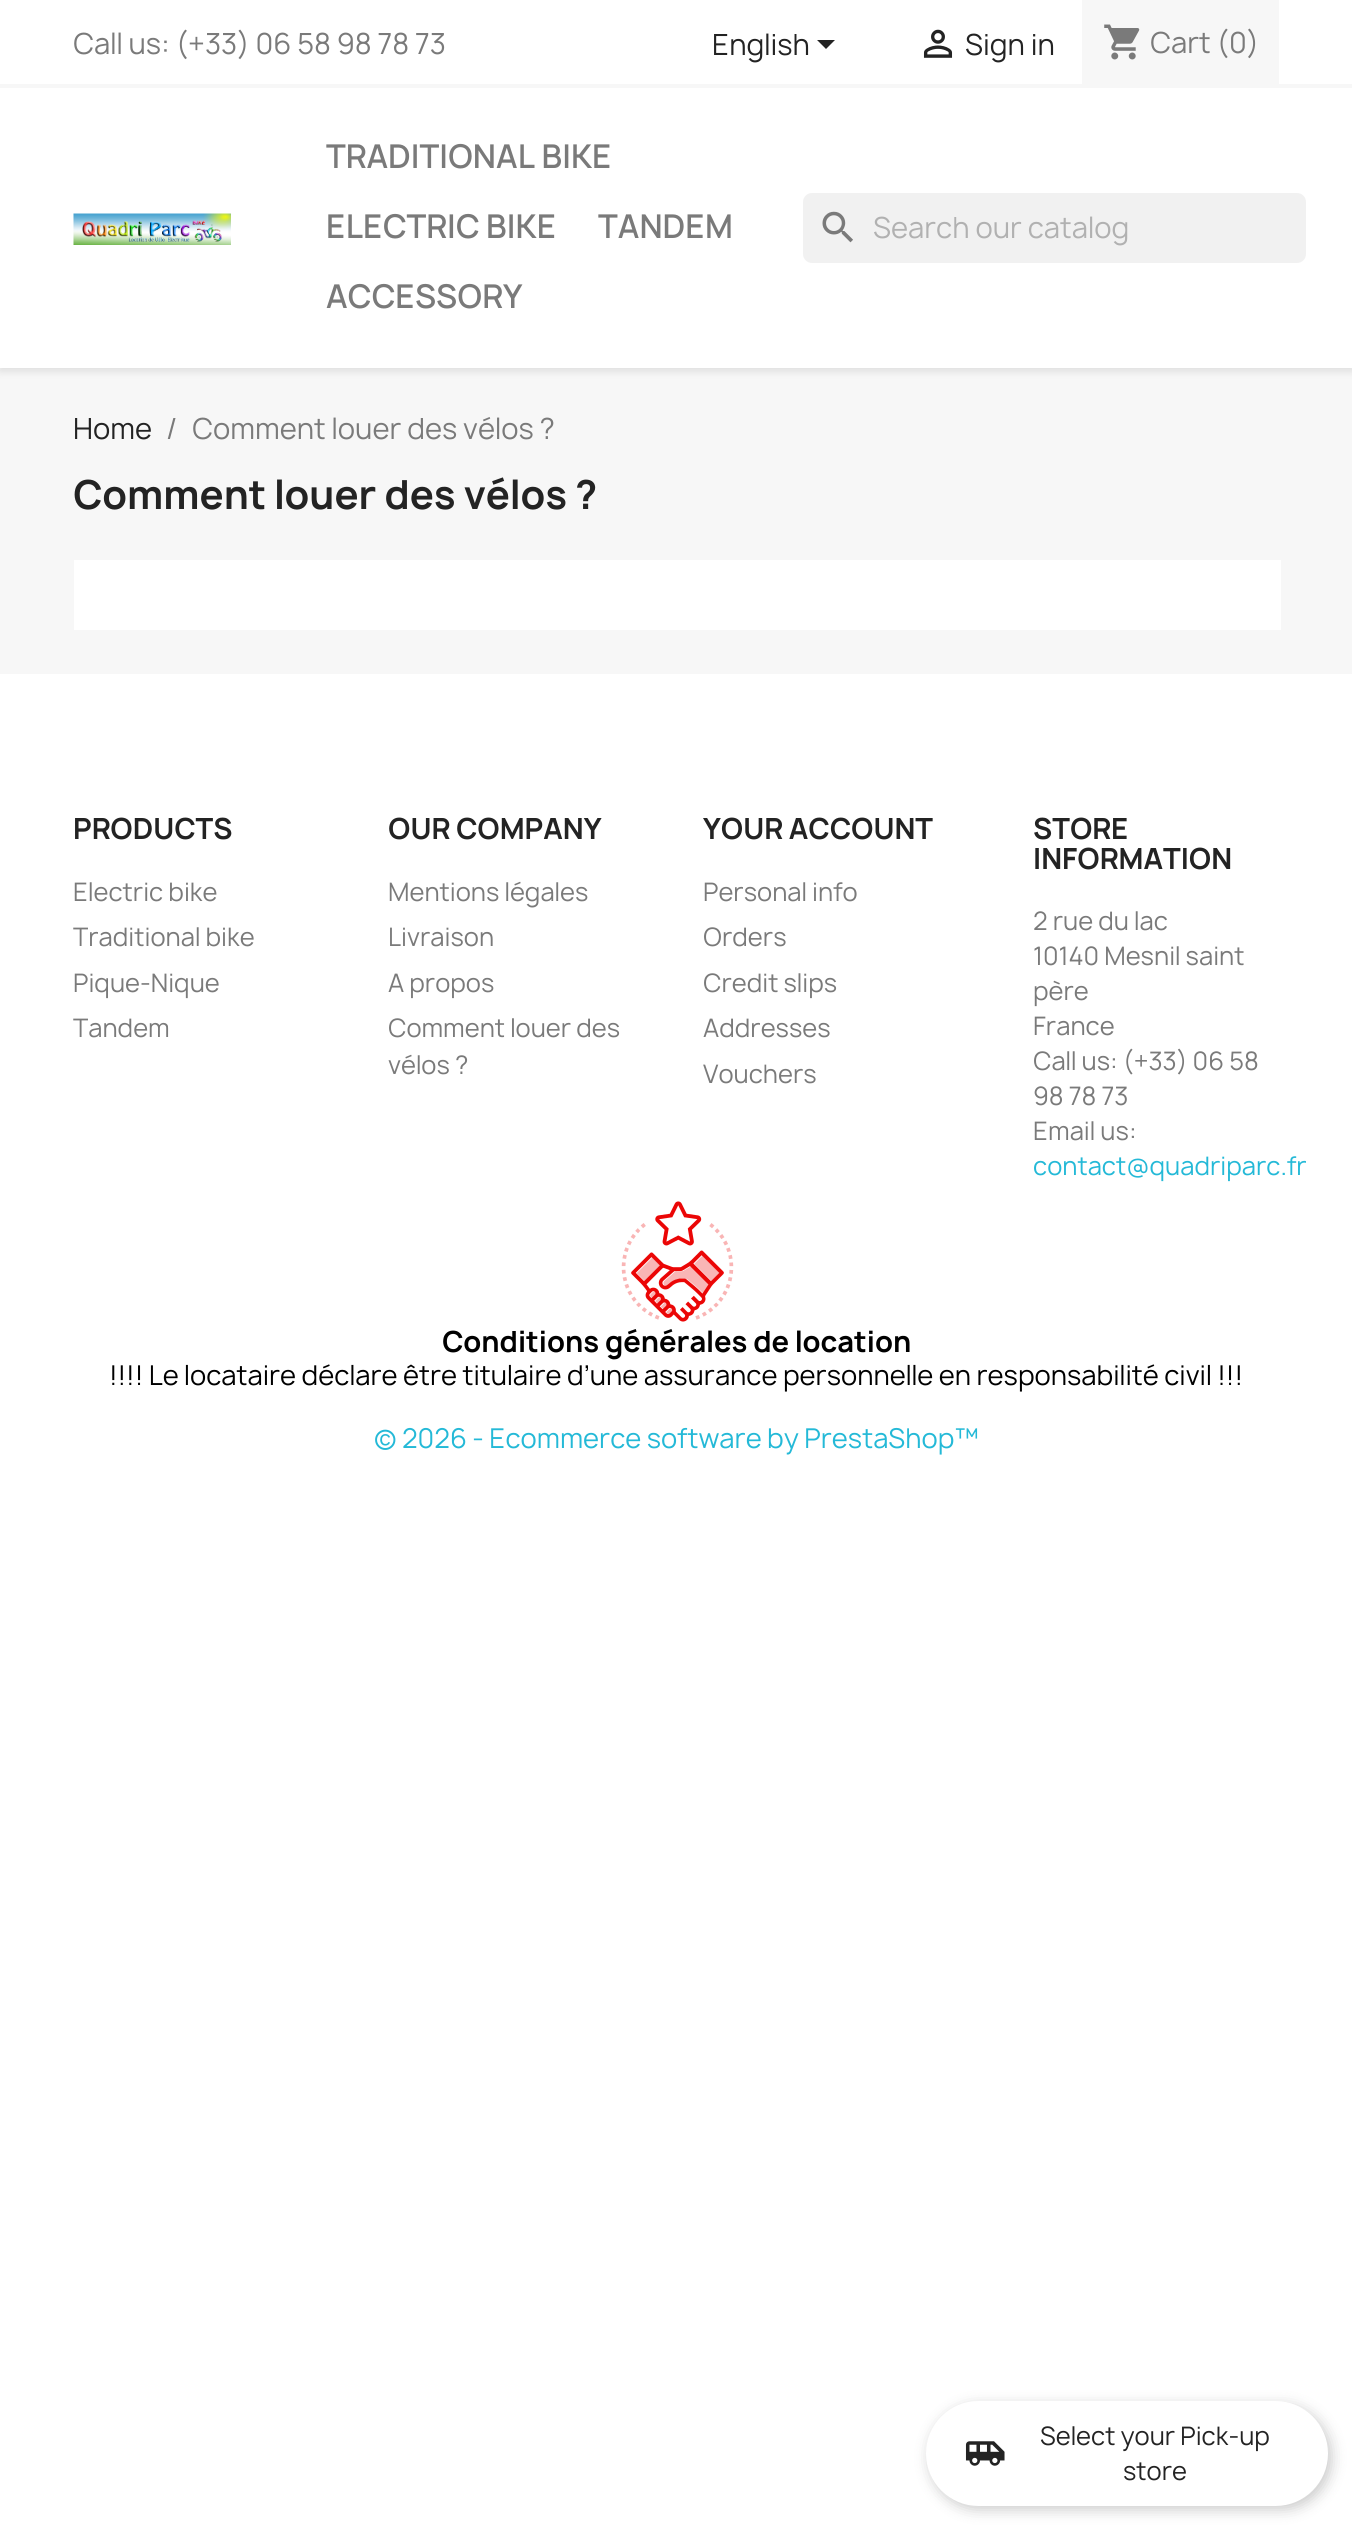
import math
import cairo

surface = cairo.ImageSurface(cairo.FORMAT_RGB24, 1352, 2532)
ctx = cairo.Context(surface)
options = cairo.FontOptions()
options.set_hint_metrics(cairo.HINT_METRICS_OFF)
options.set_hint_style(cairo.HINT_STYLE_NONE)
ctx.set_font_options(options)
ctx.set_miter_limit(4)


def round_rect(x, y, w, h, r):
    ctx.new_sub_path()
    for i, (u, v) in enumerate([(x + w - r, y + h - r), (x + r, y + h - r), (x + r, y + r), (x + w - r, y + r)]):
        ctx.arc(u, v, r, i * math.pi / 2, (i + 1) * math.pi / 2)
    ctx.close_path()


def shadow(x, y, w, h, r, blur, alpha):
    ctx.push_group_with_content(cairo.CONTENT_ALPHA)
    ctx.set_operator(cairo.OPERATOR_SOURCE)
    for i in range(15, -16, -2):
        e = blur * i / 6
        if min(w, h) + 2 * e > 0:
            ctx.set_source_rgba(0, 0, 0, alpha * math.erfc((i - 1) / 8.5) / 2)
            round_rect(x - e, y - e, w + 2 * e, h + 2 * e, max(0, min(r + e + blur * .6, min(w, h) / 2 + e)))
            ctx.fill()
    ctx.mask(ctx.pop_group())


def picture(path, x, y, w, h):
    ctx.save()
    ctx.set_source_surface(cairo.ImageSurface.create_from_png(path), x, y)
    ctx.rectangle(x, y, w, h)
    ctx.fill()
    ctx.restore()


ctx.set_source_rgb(1, 1, 1)
ctx.paint()
ctx.set_source_rgb(0.965, 0.965, 0.965)
ctx.rectangle(0, 368, 1352, 306)
ctx.fill()
ctx.set_source_rgb(0, 0, 0)
shadow(0, 4, 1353, 367, 0, 4.5, 0.11)
ctx.set_source_rgb(1, 1, 1)
ctx.rectangle(0, 0, 1352, 368)
ctx.fill()
ctx.set_source_rgb(0.965, 0.965, 0.965)
ctx.rectangle(0, 84, 1352, 4)
ctx.fill()
ctx.select_font_face("Manrope")
ctx.set_font_size(28)
ctx.set_source_rgb(0.478, 0.478, 0.478)
ctx.move_to(73, 54)
ctx.show_text("Call us: (+33) 06 58 98 78 73")
ctx.set_source_rgb(0.137, 0.137, 0.137)
ctx.move_to(712, 55)
ctx.show_text("English")
ctx.new_path()
ctx.move_to(817, 40)
ctx.line_to(835, 40)
ctx.line_to(826, 49)
ctx.close_path()
ctx.fill()
picture("img1.png", 923, 29, 30, 29)
ctx.move_to(965, 55)
ctx.show_text("Sign in")
ctx.set_source_rgb(0.965, 0.965, 0.965)
ctx.rectangle(1082, 0, 197, 84)
ctx.fill()
picture("img2.png", 1104, 24, 36, 36)
ctx.set_source_rgb(0.478, 0.478, 0.478)
ctx.move_to(1150, 53)
ctx.show_text("Cart (0)")
picture("img3.png", 73, 213, 158, 32)
ctx.select_font_face("Manrope SemiBold")
ctx.set_font_size(31.5)
ctx.move_to(326, 168)
ctx.show_text("TRADITIONAL BIKE")
ctx.move_to(326, 238)
ctx.show_text("ELECTRIC BIKE")
ctx.move_to(598, 238)
ctx.show_text("TANDEM")
ctx.move_to(326, 308)
ctx.show_text("ACCESSORY")
ctx.set_source_rgb(0.945, 0.945, 0.945)
round_rect(803, 193, 503, 70, 9)
ctx.fill()
picture("img4.png", 822, 211, 31, 32)
ctx.select_font_face("Manrope")
ctx.set_font_size(28)
ctx.set_source_rgb(0.694, 0.694, 0.694)
ctx.move_to(873, 238)
ctx.show_text("Search our catalog")
ctx.set_source_rgb(0.137, 0.137, 0.137)
ctx.move_to(73, 439)
ctx.show_text("Home")
ctx.set_source_rgb(0.478, 0.478, 0.478)
ctx.move_to(166, 439)
ctx.show_text("/")
ctx.move_to(192, 439)
ctx.show_text("Comment louer des vélos ?")
ctx.select_font_face("Manrope", cairo.FONT_SLANT_NORMAL, cairo.FONT_WEIGHT_BOLD)
ctx.set_font_size(38.5)
ctx.set_source_rgb(0.137, 0.137, 0.137)
ctx.move_to(73, 509)
ctx.show_text("Comment louer des vélos ?")
ctx.set_source_rgb(1, 1, 1)
ctx.rectangle(74, 560, 1207, 70)
ctx.fill()
ctx.set_font_size(28)
ctx.set_source_rgb(0.137, 0.137, 0.137)
ctx.move_to(73, 839)
ctx.show_text("PRODUCTS")
ctx.select_font_face("Manrope")
ctx.set_font_size(24.5)
ctx.set_source_rgb(0.478, 0.478, 0.478)
ctx.move_to(73, 901)
ctx.show_text("Electric bike")
ctx.move_to(73, 946)
ctx.show_text("Traditional bike")
ctx.move_to(73, 992)
ctx.show_text("Pique-Nique")
ctx.move_to(73, 1037)
ctx.show_text("Tandem")
ctx.select_font_face("Manrope", cairo.FONT_SLANT_NORMAL, cairo.FONT_WEIGHT_BOLD)
ctx.set_font_size(28)
ctx.set_source_rgb(0.137, 0.137, 0.137)
ctx.move_to(388, 839)
ctx.show_text("OUR COMPANY")
ctx.select_font_face("Manrope")
ctx.set_font_size(24.5)
ctx.set_source_rgb(0.478, 0.478, 0.478)
ctx.move_to(388, 901)
ctx.show_text("Mentions légales")
ctx.move_to(388, 946)
ctx.show_text("Livraison")
ctx.move_to(388, 992)
ctx.show_text("A propos")
ctx.move_to(388, 1037)
ctx.show_text("Comment louer des")
ctx.move_to(388, 1074)
ctx.show_text("vélos ?")
ctx.select_font_face("Manrope", cairo.FONT_SLANT_NORMAL, cairo.FONT_WEIGHT_BOLD)
ctx.set_font_size(28)
ctx.set_source_rgb(0.137, 0.137, 0.137)
ctx.move_to(703, 839)
ctx.show_text("YOUR ACCOUNT")
ctx.select_font_face("Manrope")
ctx.set_font_size(24.5)
ctx.set_source_rgb(0.478, 0.478, 0.478)
ctx.move_to(703, 901)
ctx.show_text("Personal info")
ctx.move_to(703, 946)
ctx.show_text("Orders")
ctx.move_to(703, 992)
ctx.show_text("Credit slips")
ctx.move_to(703, 1037)
ctx.show_text("Addresses")
ctx.move_to(703, 1083)
ctx.show_text("Vouchers")
ctx.select_font_face("Manrope", cairo.FONT_SLANT_NORMAL, cairo.FONT_WEIGHT_BOLD)
ctx.set_font_size(28)
ctx.set_source_rgb(0.137, 0.137, 0.137)
ctx.move_to(1033, 839)
ctx.show_text("STORE")
ctx.move_to(1033, 869)
ctx.show_text("INFORMATION")
ctx.select_font_face("Manrope")
ctx.set_font_size(24.5)
ctx.set_source_rgb(0.478, 0.478, 0.478)
ctx.move_to(1033, 930)
ctx.show_text("2 rue du lac")
ctx.move_to(1033, 965)
ctx.show_text("10140 Mesnil saint")
ctx.move_to(1033, 1000)
ctx.show_text("père")
ctx.move_to(1033, 1035)
ctx.show_text("France")
ctx.move_to(1033, 1070)
ctx.show_text("Call us: (+33) 06 58")
ctx.move_to(1033, 1105)
ctx.show_text("98 78 73")
ctx.move_to(1033, 1140)
ctx.show_text("Email us:")
ctx.set_source_rgb(0.141, 0.725, 0.843)
ctx.move_to(1033, 1175)
ctx.show_text("contact@quadriparc.fr")
picture("img5.png", 621, 1201, 113, 121)
ctx.select_font_face("Manrope", cairo.FONT_SLANT_NORMAL, cairo.FONT_WEIGHT_BOLD)
ctx.set_font_size(28)
ctx.set_source_rgb(0, 0, 0)
ctx.move_to(442, 1352)
ctx.show_text("Conditions générales de location")
ctx.select_font_face("Manrope")
ctx.set_font_size(26.25)
ctx.move_to(109, 1385)
ctx.show_text("!!!! Le locataire déclare être titulaire d’une assurance personnelle en responsabilité civil !!!")
ctx.set_source_rgb(0.141, 0.725, 0.843)
ctx.move_to(374, 1448)
ctx.show_text("© 2026 - Ecommerce software by PrestaShop™")
ctx.set_source_rgb(0, 0, 0)
shadow(929, 2405, 403, 105, 52.5, 7, 0.2)
ctx.set_source_rgb(1, 1, 1)
round_rect(926, 2401, 402, 105, 52.5)
ctx.fill()
picture("img6.png", 965, 2441, 40, 25)
ctx.set_font_size(24.5)
ctx.set_source_rgb(0.137, 0.137, 0.137)
ctx.move_to(1040, 2445)
ctx.show_text("Select your Pick-up")
ctx.move_to(1123, 2480)
ctx.show_text("store")
surface.write_to_png("page.png")
